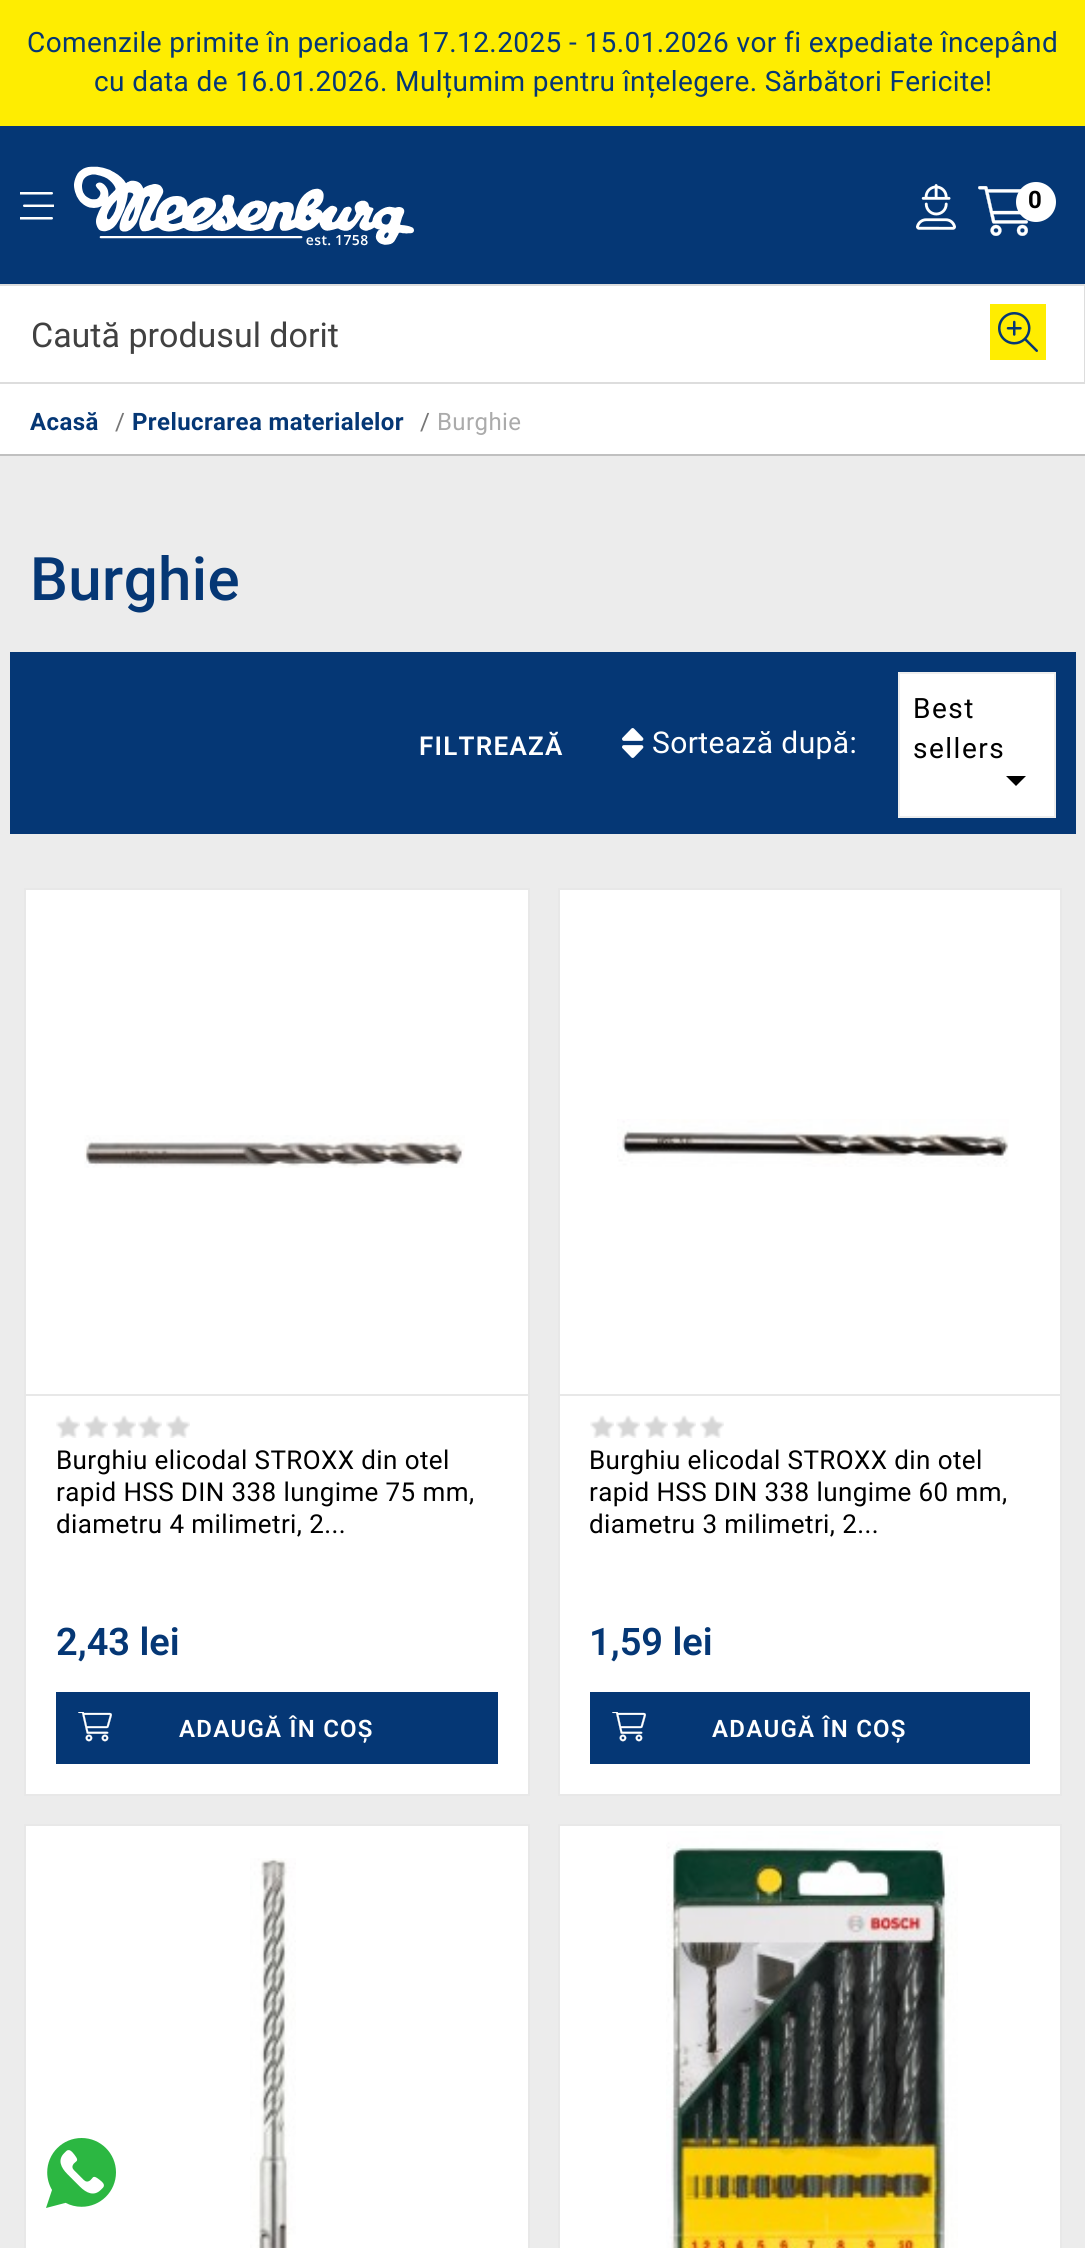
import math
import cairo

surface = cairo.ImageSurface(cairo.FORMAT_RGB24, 1085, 2248)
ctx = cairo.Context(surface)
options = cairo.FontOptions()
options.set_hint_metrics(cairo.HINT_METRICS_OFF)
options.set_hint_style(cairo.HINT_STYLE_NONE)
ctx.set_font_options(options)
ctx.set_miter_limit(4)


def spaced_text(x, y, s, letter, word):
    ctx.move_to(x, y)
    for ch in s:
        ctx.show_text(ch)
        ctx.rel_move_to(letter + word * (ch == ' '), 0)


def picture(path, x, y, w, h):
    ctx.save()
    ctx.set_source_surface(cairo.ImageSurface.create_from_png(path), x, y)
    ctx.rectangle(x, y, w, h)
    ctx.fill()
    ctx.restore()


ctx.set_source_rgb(1, 1, 1)
ctx.paint()
ctx.set_source_rgb(0.996, 0.929, 0.004)
ctx.rectangle(0, 0, 1085, 126)
ctx.fill()
ctx.select_font_face("Roboto")
ctx.set_font_size(28)
ctx.set_source_rgb(0.02, 0.216, 0.459)
spaced_text(27, 52, "Comenzile primite în perioada 17.12.2025 - 15.01.2026 vor fi expediate începând", 0.4, 0)
spaced_text(94, 91, "cu data de 16.01.2026. Mulțumim pentru înțelegere. Sărbători Fericite!", 0.4, 0)
ctx.rectangle(0, 126, 1085, 158)
ctx.fill()
picture("img1.png", 20, 192, 34, 28)
picture("img2.png", 74, 166, 340, 80)
picture("img3.png", 916, 184, 40, 46)
picture("img4.png", 978, 186, 50, 50)
ctx.set_source_rgb(1, 1, 1)
ctx.arc(1036, 202, 20, 0, 2 * math.pi)
ctx.fill()
ctx.select_font_face("Roboto", cairo.FONT_SLANT_NORMAL, cairo.FONT_WEIGHT_BOLD)
ctx.set_font_size(24)
ctx.set_source_rgb(0, 0, 0)
spaced_text(1028, 208, "0", 1.5, 0)
ctx.rectangle(-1, 285, 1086, 98)
ctx.set_source_rgb(0.867, 0.867, 0.867)
ctx.stroke()
ctx.select_font_face("Roboto")
ctx.set_font_size(34)
ctx.set_source_rgb(0.255, 0.255, 0.255)
ctx.move_to(31, 347)
ctx.show_text("Caută produsul dorit")
ctx.set_source_rgb(1, 0.929, 0)
ctx.rectangle(990, 304, 56, 56)
ctx.fill()
picture("img5.png", 998, 312, 40, 40)
ctx.set_source_rgb(0.922, 0.922, 0.922)
ctx.rectangle(0, 456, 1085, 1792)
ctx.fill()
ctx.set_source_rgb(0.753, 0.753, 0.753)
ctx.rectangle(0, 454, 1085, 2)
ctx.fill()
ctx.select_font_face("Roboto", cairo.FONT_SLANT_NORMAL, cairo.FONT_WEIGHT_BOLD)
ctx.set_font_size(24)
ctx.set_source_rgb(0.02, 0.216, 0.459)
spaced_text(30, 430, "Acasă", 0.4, 0)
ctx.select_font_face("Roboto")
ctx.set_source_rgb(0.463, 0.463, 0.463)
spaced_text(115, 430, "/", 0.4, 0)
ctx.select_font_face("Roboto", cairo.FONT_SLANT_NORMAL, cairo.FONT_WEIGHT_BOLD)
ctx.set_source_rgb(0.02, 0.216, 0.459)
spaced_text(132, 430, "Prelucrarea materialelor", 0.4, 0)
ctx.select_font_face("Roboto")
ctx.set_source_rgb(0.463, 0.463, 0.463)
spaced_text(420, 430, "/", 0.4, 0)
ctx.set_source_rgb(0.671, 0.671, 0.671)
spaced_text(437, 430, "Burghie", 0.4, 0)
ctx.select_font_face("Roboto Medium")
ctx.set_font_size(60)
ctx.set_source_rgb(0.02, 0.216, 0.459)
spaced_text(30, 600, "Burghie", 0.4, 0)
ctx.rectangle(10, 652, 1066, 182)
ctx.fill()
ctx.select_font_face("Roboto SemiBold")
ctx.set_font_size(26)
ctx.set_source_rgb(1, 1, 1)
spaced_text(419, 755, "FILTREAZĂ", 1.25, 0)
picture("img6.png", 622, 728, 22, 30)
ctx.select_font_face("Roboto")
ctx.set_font_size(30)
spaced_text(652, 753, "Sortează după:", 0.4, 0)
ctx.rectangle(899, 673, 156, 144)
ctx.fill_preserve()
ctx.set_source_rgb(0.933, 0.933, 0.933)
ctx.stroke()
ctx.set_font_size(28)
ctx.set_source_rgb(0, 0, 0)
spaced_text(913, 718, "Best", 1.5, 0)
spaced_text(913, 758, "sellers", 1.5, 0)
ctx.new_path()
ctx.move_to(1006, 776)
ctx.line_to(1026, 776)
ctx.line_to(1016, 786)
ctx.close_path()
ctx.fill()
ctx.set_source_rgb(1, 1, 1)
ctx.rectangle(25, 889, 504, 906)
ctx.fill_preserve()
ctx.set_source_rgb(0.91, 0.91, 0.91)
ctx.stroke()
picture("img7.png", 84, 1135, 381, 33)
ctx.rectangle(26, 1394, 502, 2)
ctx.fill()
picture("img8.png", 56, 1415, 24, 23)
picture("img8.png", 84, 1415, 24, 23)
picture("img8.png", 112, 1415, 24, 23)
picture("img8.png", 138, 1415, 24, 23)
picture("img8.png", 166, 1415, 24, 23)
ctx.set_font_size(26)
ctx.set_source_rgb(0, 0, 0)
spaced_text(56, 1469, "Burghiu elicodal STROXX din otel", 0.4, 0)
spaced_text(56, 1501, "rapid HSS DIN 338 lungime 75 mm,", 0.4, 0)
spaced_text(56, 1533, "diametru 4 milimetri, 2...", 0.4, 0)
ctx.select_font_face("Roboto SemiBold")
ctx.set_font_size(38)
ctx.set_source_rgb(0.02, 0.216, 0.459)
ctx.move_to(56, 1655)
ctx.show_text("2,43 lei")
ctx.rectangle(56, 1692, 442, 72)
ctx.fill()
picture("img9.png", 78, 1712, 34, 30)
ctx.set_font_size(24)
ctx.set_source_rgb(1, 1, 1)
spaced_text(179, 1737, "ADAUGĂ ÎN COȘ", 1.25, 0)
ctx.rectangle(559, 889, 502, 906)
ctx.fill_preserve()
ctx.set_source_rgb(0.91, 0.91, 0.91)
ctx.stroke()
picture("img10.png", 617, 1119, 392, 48)
ctx.rectangle(560, 1394, 500, 2)
ctx.fill()
picture("img8.png", 590, 1415, 24, 23)
picture("img8.png", 616, 1415, 24, 23)
picture("img8.png", 644, 1415, 24, 23)
picture("img8.png", 672, 1415, 24, 23)
picture("img8.png", 700, 1415, 24, 23)
ctx.select_font_face("Roboto")
ctx.set_font_size(26)
ctx.set_source_rgb(0, 0, 0)
spaced_text(589, 1469, "Burghiu elicodal STROXX din otel", 0.4, 0)
spaced_text(589, 1501, "rapid HSS DIN 338 lungime 60 mm,", 0.4, 0)
spaced_text(589, 1533, "diametru 3 milimetri, 2...", 0.4, 0)
ctx.select_font_face("Roboto SemiBold")
ctx.set_font_size(38)
ctx.set_source_rgb(0.02, 0.216, 0.459)
ctx.move_to(589, 1655)
ctx.show_text("1,59 lei")
ctx.rectangle(590, 1692, 440, 72)
ctx.fill()
picture("img9.png", 612, 1712, 34, 30)
ctx.set_font_size(24)
ctx.set_source_rgb(1, 1, 1)
spaced_text(712, 1737, "ADAUGĂ ÎN COȘ", 1.25, 0)
ctx.rectangle(25, 1825, 504, 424)
ctx.fill_preserve()
ctx.set_source_rgb(0.91, 0.91, 0.91)
ctx.stroke()
picture("img11.png", 250, 1858, 46, 390)
ctx.set_source_rgb(1, 1, 1)
ctx.rectangle(559, 1825, 502, 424)
ctx.fill_preserve()
ctx.set_source_rgb(0.91, 0.91, 0.91)
ctx.stroke()
picture("img12.png", 666, 1831, 292, 417)
picture("img13.png", 46, 2138, 70, 70)
surface.write_to_png("page.png")
